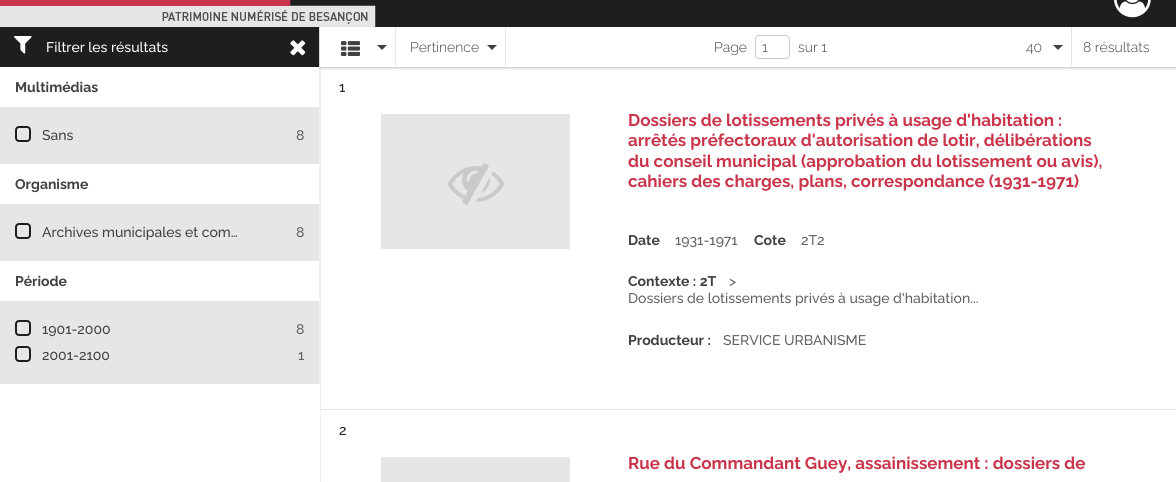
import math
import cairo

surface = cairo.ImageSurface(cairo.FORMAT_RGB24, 1176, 482)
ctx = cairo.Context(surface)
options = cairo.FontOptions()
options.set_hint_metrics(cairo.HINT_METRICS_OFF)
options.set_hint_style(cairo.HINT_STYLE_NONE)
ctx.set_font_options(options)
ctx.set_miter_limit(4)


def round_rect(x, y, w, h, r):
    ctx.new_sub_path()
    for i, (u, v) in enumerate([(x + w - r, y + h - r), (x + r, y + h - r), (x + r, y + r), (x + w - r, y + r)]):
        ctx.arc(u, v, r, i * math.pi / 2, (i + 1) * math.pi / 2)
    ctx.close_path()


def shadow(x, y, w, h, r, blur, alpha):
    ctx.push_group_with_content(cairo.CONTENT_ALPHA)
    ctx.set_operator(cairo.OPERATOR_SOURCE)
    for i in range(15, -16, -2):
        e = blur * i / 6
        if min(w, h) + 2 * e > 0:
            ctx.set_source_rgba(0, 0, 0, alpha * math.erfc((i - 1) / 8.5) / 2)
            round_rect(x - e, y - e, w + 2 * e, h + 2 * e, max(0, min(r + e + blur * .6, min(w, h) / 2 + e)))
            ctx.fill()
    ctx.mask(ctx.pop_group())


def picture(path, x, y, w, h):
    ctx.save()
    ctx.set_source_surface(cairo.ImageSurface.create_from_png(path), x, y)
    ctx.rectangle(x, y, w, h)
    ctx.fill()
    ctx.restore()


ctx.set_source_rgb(1, 1, 1)
ctx.paint()
ctx.set_source_rgb(0.11, 0.118, 0.125)
ctx.rectangle(290, 0, 886, 27)
ctx.fill()
picture("img1.png", 0, 0, 376, 27)
picture("img2.png", 1114, 0, 37, 18)
ctx.set_source_rgb(0.902, 0.902, 0.902)
ctx.rectangle(0, 107, 319, 277)
ctx.fill()
ctx.set_source_rgb(0.945, 0.945, 0.945)
ctx.rectangle(319, 27, 1, 357)
ctx.fill()
ctx.set_source_rgb(0.11, 0.118, 0.125)
ctx.rectangle(0, 27, 319, 40)
ctx.fill()
picture("img3.png", 14, 36, 18, 18)
ctx.select_font_face("Raleway Medium")
ctx.set_font_size(14)
ctx.set_source_rgb(1, 1, 1)
ctx.move_to(46, 52)
ctx.show_text("Filtrer les résultats")
picture("img4.png", 290, 40, 16, 16)
ctx.select_font_face("Raleway", cairo.FONT_SLANT_NORMAL, cairo.FONT_WEIGHT_BOLD)
ctx.set_source_rgb(0.255, 0.255, 0.255)
ctx.move_to(15, 92)
ctx.show_text("Multimédias")
round_rect(16, 127, 14, 14, 3)
ctx.set_source_rgb(0.11, 0.118, 0.125)
ctx.stroke()
ctx.select_font_face("Raleway Medium")
ctx.set_source_rgb(0.255, 0.255, 0.255)
ctx.move_to(42, 140)
ctx.show_text("Sans")
ctx.set_source_rgb(0.384, 0.384, 0.384)
ctx.move_to(296, 140)
ctx.show_text("8")
ctx.set_source_rgb(1, 1, 1)
ctx.rectangle(0, 164, 319, 40)
ctx.fill()
ctx.select_font_face("Raleway", cairo.FONT_SLANT_NORMAL, cairo.FONT_WEIGHT_BOLD)
ctx.set_source_rgb(0.255, 0.255, 0.255)
ctx.move_to(15, 189)
ctx.show_text("Organisme")
round_rect(16, 224, 14, 14, 3)
ctx.set_source_rgb(0.11, 0.118, 0.125)
ctx.stroke()
ctx.select_font_face("Raleway Medium")
ctx.set_source_rgb(0.255, 0.255, 0.255)
ctx.move_to(42, 237)
ctx.show_text("Archives municipales et com…")
ctx.set_source_rgb(0.384, 0.384, 0.384)
ctx.move_to(296, 237)
ctx.show_text("8")
ctx.set_source_rgb(1, 1, 1)
ctx.rectangle(0, 261, 319, 40)
ctx.fill()
ctx.select_font_face("Raleway", cairo.FONT_SLANT_NORMAL, cairo.FONT_WEIGHT_BOLD)
ctx.set_source_rgb(0.255, 0.255, 0.255)
ctx.move_to(15, 286)
ctx.show_text("Période")
round_rect(16, 321, 14, 14, 3)
ctx.set_source_rgb(0.11, 0.118, 0.125)
ctx.stroke()
ctx.select_font_face("Raleway Medium")
ctx.set_source_rgb(0.255, 0.255, 0.255)
ctx.move_to(42, 334)
ctx.show_text("1901-2000")
ctx.set_source_rgb(0.384, 0.384, 0.384)
ctx.move_to(296, 334)
ctx.show_text("8")
round_rect(16, 347, 14, 14, 3)
ctx.set_source_rgb(0.11, 0.118, 0.125)
ctx.stroke()
ctx.set_source_rgb(0.255, 0.255, 0.255)
ctx.move_to(42, 360)
ctx.show_text("2001-2100")
ctx.set_source_rgb(0.384, 0.384, 0.384)
ctx.move_to(298, 360)
ctx.show_text("1")
ctx.set_source_rgb(0.945, 0.945, 0.945)
ctx.rectangle(320, 67, 1, 415)
ctx.fill()
ctx.save()
ctx.set_fill_rule(cairo.FILL_RULE_EVEN_ODD)
ctx.new_path()
ctx.move_to(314, 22)
ctx.line_to(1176, 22)
ctx.line_to(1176, 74)
ctx.line_to(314, 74)
ctx.close_path()
ctx.move_to(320, 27)
ctx.line_to(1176, 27)
ctx.line_to(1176, 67)
ctx.line_to(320, 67)
ctx.close_path()
ctx.clip()
ctx.set_source_rgb(0, 0, 0)
shadow(320, 28, 856, 40, 0, 1.5, 0.25)
ctx.restore()
ctx.set_source_rgb(0.902, 0.902, 0.902)
ctx.rectangle(395, 27, 1, 40)
ctx.fill()
picture("img5.png", 341, 41, 19, 15)
ctx.set_source_rgb(0.255, 0.255, 0.255)
ctx.new_path()
ctx.move_to(377, 45)
ctx.line_to(387, 45)
ctx.line_to(382, 50)
ctx.close_path()
ctx.fill()
ctx.set_source_rgb(0.902, 0.902, 0.902)
ctx.rectangle(505, 27, 1, 40)
ctx.fill()
ctx.select_font_face("Raleway Light")
ctx.set_source_rgb(0.255, 0.255, 0.255)
ctx.move_to(410, 52)
ctx.show_text("Pertinence")
ctx.new_path()
ctx.move_to(487, 45)
ctx.line_to(497, 45)
ctx.line_to(492, 50)
ctx.close_path()
ctx.fill()
ctx.move_to(714, 52)
ctx.show_text("Page")
round_rect(755.5, 35.5, 34, 23, 3.5)
ctx.set_source_rgb(0.792, 0.792, 0.792)
ctx.set_line_width(1)
ctx.stroke()
ctx.set_source_rgb(0.255, 0.255, 0.255)
ctx.move_to(762, 52)
ctx.show_text("1")
ctx.move_to(798, 52)
ctx.show_text("sur 1")
ctx.set_source_rgb(0.902, 0.902, 0.902)
ctx.rectangle(1071, 27, 1, 40)
ctx.fill()
ctx.set_source_rgb(0.255, 0.255, 0.255)
ctx.move_to(1026, 52)
ctx.show_text("40")
ctx.new_path()
ctx.move_to(1053, 45)
ctx.line_to(1063, 45)
ctx.line_to(1058, 50)
ctx.close_path()
ctx.fill()
ctx.move_to(1083, 52)
ctx.show_text("8 résultats")
ctx.set_source_rgb(0.902, 0.902, 0.902)
ctx.rectangle(321, 409, 855, 1)
ctx.fill()
ctx.select_font_face("Raleway Medium")
ctx.set_source_rgb(0.129, 0.145, 0.161)
ctx.move_to(339, 92)
ctx.show_text("1")
ctx.set_source_rgb(0.902, 0.902, 0.902)
ctx.rectangle(381, 114, 189, 135)
ctx.fill()
picture("img6.png", 448, 163, 56, 42)
ctx.select_font_face("Raleway", cairo.FONT_SLANT_NORMAL, cairo.FONT_WEIGHT_BOLD)
ctx.set_font_size(17)
ctx.set_source_rgb(0.788, 0.212, 0.294)
ctx.move_to(628, 126)
ctx.show_text("Dossiers de lotissements privés à usage d'habitation :")
ctx.move_to(628, 146)
ctx.show_text("arrêtés préfectoraux d'autorisation de lotir, délibérations")
ctx.move_to(628, 167)
ctx.show_text("du conseil municipal (approbation du lotissement ou avis),")
ctx.move_to(628, 187)
ctx.show_text("cahiers des charges, plans, correspondance (1931-1971)")
ctx.set_font_size(14)
ctx.set_source_rgb(0.255, 0.255, 0.255)
ctx.move_to(628, 245)
ctx.show_text("Date")
ctx.select_font_face("Raleway Medium")
ctx.set_source_rgb(0.384, 0.384, 0.384)
ctx.move_to(675, 245)
ctx.show_text("1931-1971")
ctx.select_font_face("Raleway", cairo.FONT_SLANT_NORMAL, cairo.FONT_WEIGHT_BOLD)
ctx.set_source_rgb(0.255, 0.255, 0.255)
ctx.move_to(754, 245)
ctx.show_text("Cote")
ctx.select_font_face("Raleway Medium")
ctx.set_source_rgb(0.384, 0.384, 0.384)
ctx.move_to(801, 245)
ctx.show_text("2T2")
ctx.select_font_face("Raleway", cairo.FONT_SLANT_NORMAL, cairo.FONT_WEIGHT_BOLD)
ctx.set_source_rgb(0.255, 0.255, 0.255)
ctx.move_to(628, 286)
ctx.show_text("Contexte : 2T")
ctx.select_font_face("Raleway Medium")
ctx.set_source_rgb(0.384, 0.384, 0.384)
ctx.move_to(729, 286)
ctx.show_text(">")
ctx.move_to(628, 303)
ctx.show_text("Dossiers de lotissements privés à usage d'habitation...")
ctx.select_font_face("Raleway", cairo.FONT_SLANT_NORMAL, cairo.FONT_WEIGHT_BOLD)
ctx.set_source_rgb(0.255, 0.255, 0.255)
ctx.move_to(628, 345)
ctx.show_text("Producteur :")
ctx.select_font_face("Raleway Medium")
ctx.set_source_rgb(0.384, 0.384, 0.384)
ctx.move_to(723, 345)
ctx.show_text("SERVICE URBANISME")
ctx.set_source_rgb(0.129, 0.145, 0.161)
ctx.move_to(339, 435)
ctx.show_text("2")
ctx.set_source_rgb(0.902, 0.902, 0.902)
ctx.rectangle(381, 457, 189, 25)
ctx.fill()
ctx.select_font_face("Raleway", cairo.FONT_SLANT_NORMAL, cairo.FONT_WEIGHT_BOLD)
ctx.set_font_size(17)
ctx.set_source_rgb(0.788, 0.212, 0.294)
ctx.move_to(628, 469)
ctx.show_text("Rue du Commandant Guey, assainissement : dossiers de")
surface.write_to_png("page.png")
